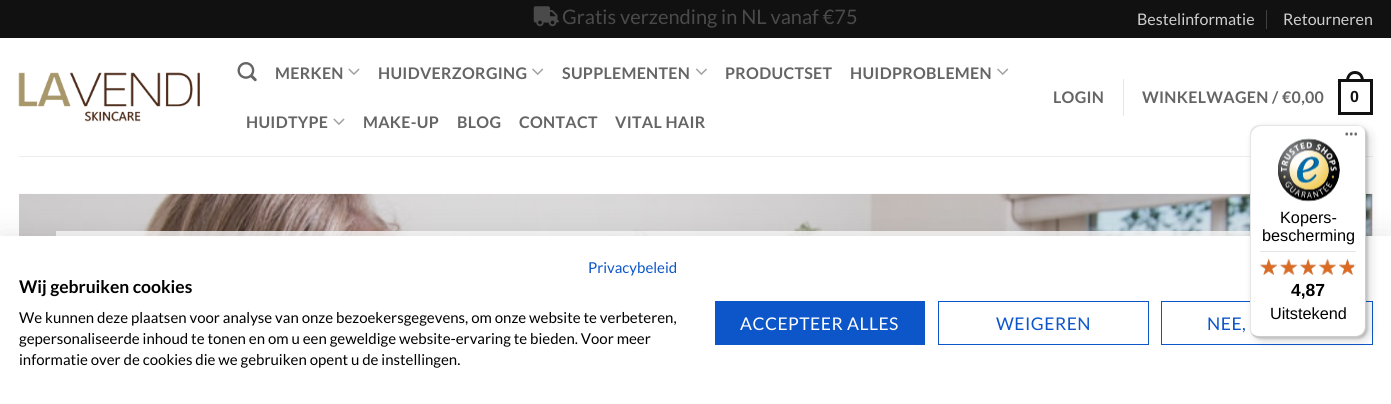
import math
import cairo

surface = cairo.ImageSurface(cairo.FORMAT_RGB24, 1391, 404)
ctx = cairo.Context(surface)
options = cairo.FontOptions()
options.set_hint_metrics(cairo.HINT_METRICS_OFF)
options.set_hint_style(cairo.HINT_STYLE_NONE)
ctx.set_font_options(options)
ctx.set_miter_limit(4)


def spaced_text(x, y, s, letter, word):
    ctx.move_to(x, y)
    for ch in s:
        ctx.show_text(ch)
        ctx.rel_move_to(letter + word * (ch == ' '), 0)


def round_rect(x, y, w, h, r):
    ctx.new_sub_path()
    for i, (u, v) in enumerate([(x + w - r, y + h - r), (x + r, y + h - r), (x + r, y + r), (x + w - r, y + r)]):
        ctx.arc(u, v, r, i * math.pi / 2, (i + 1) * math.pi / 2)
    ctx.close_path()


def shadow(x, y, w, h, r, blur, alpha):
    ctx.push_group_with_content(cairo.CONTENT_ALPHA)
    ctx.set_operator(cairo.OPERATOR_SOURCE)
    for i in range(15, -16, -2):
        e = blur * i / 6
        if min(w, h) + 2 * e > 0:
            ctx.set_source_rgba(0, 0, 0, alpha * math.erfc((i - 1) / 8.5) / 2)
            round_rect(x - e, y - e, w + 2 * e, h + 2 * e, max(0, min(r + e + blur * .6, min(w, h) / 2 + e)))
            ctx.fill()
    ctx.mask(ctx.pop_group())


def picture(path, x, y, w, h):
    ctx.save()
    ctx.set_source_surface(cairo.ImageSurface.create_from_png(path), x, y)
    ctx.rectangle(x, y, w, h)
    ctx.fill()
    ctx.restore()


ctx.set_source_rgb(1, 1, 1)
ctx.paint()
ctx.set_source_rgb(0.067, 0.067, 0.067)
ctx.rectangle(0, 0, 1391, 38)
ctx.fill()
picture("img1.png", 533, 6, 26, 21)
ctx.select_font_face("Lato")
ctx.set_font_size(20)
ctx.set_source_rgb(0.29, 0.29, 0.29)
ctx.move_to(562, 24)
ctx.show_text("Gratis verzending in NL vanaf €75")
ctx.set_font_size(16)
ctx.set_source_rgb(0.812, 0.812, 0.812)
ctx.move_to(1137, 25)
ctx.show_text("Bestelinformatie")
ctx.set_source_rgb(0.255, 0.255, 0.255)
ctx.rectangle(1266, 10, 1, 19)
ctx.fill()
ctx.set_source_rgb(0.812, 0.812, 0.812)
ctx.move_to(1283, 25)
ctx.show_text("Retourneren")
picture("img2.png", 18, 72, 182, 50)
picture("img3.png", 237, 62, 20, 20)
ctx.select_font_face("Lato", cairo.FONT_SLANT_NORMAL, cairo.FONT_WEIGHT_BOLD)
ctx.set_source_rgb(0.396, 0.396, 0.396)
spaced_text(275, 79, "MERKEN", 0.3, 0)
picture("img4.png", 348, 68, 12, 7)
spaced_text(378, 79, "HUIDVERZORGING", 0.3, 0)
picture("img5.png", 532, 68, 12, 7)
spaced_text(562, 79, "SUPPLEMENTEN", 0.3, 0)
picture("img6.png", 695, 68, 12, 7)
spaced_text(725, 79, "PRODUCTSET", 0.3, 0)
spaced_text(850, 79, "HUIDPROBLEMEN", 0.3, 0)
picture("img5.png", 997, 68, 12, 7)
spaced_text(246, 128, "HUIDTYPE", 0.3, 0)
picture("img4.png", 333, 118, 12, 7)
spaced_text(363, 128, "MAKE-UP", 0.3, 0)
spaced_text(457, 128, "BLOG", 0.3, 0)
spaced_text(519, 128, "CONTACT", 0.3, 0)
spaced_text(615, 128, "VITAL HAIR", 0.3, 0)
spaced_text(1053, 103, "LOGIN", 0.3, 0)
ctx.set_source_rgb(0.902, 0.902, 0.902)
ctx.rectangle(1123, 79, 1, 37)
ctx.fill()
ctx.set_source_rgb(0.396, 0.396, 0.396)
spaced_text(1142, 103, "WINKELWAGEN / €0,00", 0.3, 0)
ctx.rectangle(1339.5, 80.5, 32, 33)
ctx.set_source_rgb(0.067, 0.067, 0.067)
ctx.set_line_width(3)
ctx.stroke()
ctx.set_fill_rule(cairo.FILL_RULE_EVEN_ODD)
ctx.new_path()
ctx.move_to(1355, 71)
ctx.curve_to(1361, 71, 1364, 76, 1364, 81)
ctx.line_to(1346, 81)
ctx.curve_to(1346, 76, 1349, 71, 1355, 71)
ctx.close_path()
ctx.move_to(1355, 74)
ctx.curve_to(1359.5, 74, 1361, 77.5, 1361, 81)
ctx.line_to(1349, 81)
ctx.curve_to(1349, 77.5, 1350.5, 74, 1355, 74)
ctx.close_path()
ctx.fill()
ctx.select_font_face("Liberation Sans", cairo.FONT_SLANT_NORMAL, cairo.FONT_WEIGHT_BOLD)
spaced_text(1350, 102, "0", 0.3, 0)
ctx.set_source_rgb(0.929, 0.929, 0.929)
ctx.rectangle(19, 156, 1354, 1)
ctx.fill()
picture("img7.png", 19, 193, 1354, 43)
ctx.set_source_rgba(1, 1, 1, 0.8)
ctx.rectangle(56, 231, 1194, 5)
ctx.fill()
ctx.set_source_rgb(0, 0, 0)
shadow(0, 236, 1391, 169, 0, 15, 0.1)
ctx.set_source_rgb(1, 1, 1)
ctx.rectangle(0, 236, 1391, 168)
ctx.fill()
ctx.select_font_face("Lato")
ctx.set_font_size(15)
ctx.set_source_rgb(0.051, 0.337, 0.788)
ctx.move_to(588, 273)
ctx.show_text("Privacybeleid")
ctx.select_font_face("Lato", cairo.FONT_SLANT_NORMAL, cairo.FONT_WEIGHT_BOLD)
ctx.set_font_size(17.5)
ctx.set_source_rgb(0, 0, 0)
ctx.move_to(19, 293)
ctx.show_text("Wij gebruiken cookies")
ctx.select_font_face("Lato")
ctx.set_font_size(15)
ctx.move_to(19, 323)
ctx.show_text("We kunnen deze plaatsen voor analyse van onze bezoekersgegevens, om onze website te verbeteren,")
ctx.move_to(19, 344)
ctx.show_text("gepersonaliseerde inhoud te tonen en om u een geweldige website-ervaring te bieden. Voor meer")
ctx.move_to(19, 365)
ctx.show_text("informatie over de cookies die we gebruiken opent u de instellingen.")
ctx.set_source_rgb(0.051, 0.337, 0.788)
ctx.rectangle(715, 301, 210, 44)
ctx.fill()
ctx.set_font_size(17.5)
ctx.set_source_rgb(1, 1, 1)
spaced_text(740, 330, "ACCEPTEER ALLES", 0.5, 0)
ctx.rectangle(938.5, 301.5, 210, 43)
ctx.set_source_rgb(0.051, 0.337, 0.788)
ctx.set_line_width(1)
ctx.stroke()
spaced_text(996, 330, "WEIGEREN", 0.5, 0)
ctx.rectangle(1161.5, 301.5, 211, 43)
ctx.stroke()
spaced_text(1207, 330, "NEE,", 0.5, 0)
ctx.set_source_rgb(0, 0, 0)
shadow(1254, 129, 116, 212, 10, 5, 0.15)
shadow(1251, 126, 117, 213, 10, 1, 0.15)
ctx.set_source_rgb(1, 1, 1)
round_rect(1250, 125, 116, 213, 10)
ctx.fill()
ctx.set_source_rgba(0, 0, 0, 0.1)
ctx.set_fill_rule(cairo.FILL_RULE_WINDING)
ctx.new_path()
ctx.move_to(1261, 126)
ctx.line_to(1358, 126)
ctx.curve_to(1359, 126, 1361, 126, 1362, 127)
ctx.curve_to(1360, 126, 1358, 125, 1356, 125)
ctx.line_to(1260, 125)
ctx.curve_to(1254, 125, 1250, 129, 1250, 135)
ctx.line_to(1250, 328)
ctx.curve_to(1250, 332, 1252, 335, 1255, 337)
ctx.curve_to(1253, 335, 1251, 332, 1251, 329)
ctx.line_to(1251, 136)
ctx.curve_to(1251, 131, 1256, 126, 1261, 126)
ctx.close_path()
ctx.fill()
ctx.set_source_rgba(0, 0, 0, 0.2)
ctx.new_path()
ctx.move_to(1251, 332)
ctx.curve_to(1253, 336, 1256, 338, 1260, 338)
ctx.line_to(1356, 338)
ctx.curve_to(1362, 338, 1366, 334, 1366, 328)
ctx.line_to(1366, 135)
ctx.curve_to(1366, 133, 1365, 130, 1364, 129)
ctx.curve_to(1365, 130, 1365, 132, 1365, 134)
ctx.line_to(1365, 326)
ctx.curve_to(1365, 332, 1361, 336, 1355, 336)
ctx.line_to(1259, 336)
ctx.curve_to(1256, 336, 1253, 335, 1251, 332)
ctx.close_path()
ctx.fill()
picture("img8.png", 1345, 132, 12, 4)
ctx.set_source_rgba(0.196, 0.196, 0.196, 0.2)
ctx.new_path()
ctx.move_to(1251, 333)
ctx.curve_to(1253, 336, 1256, 338, 1260, 338)
ctx.line_to(1356, 338)
ctx.curve_to(1362, 338, 1366, 334, 1366, 328)
ctx.line_to(1366, 327)
ctx.curve_to(1366, 332, 1361, 337, 1356, 337)
ctx.line_to(1259, 337)
ctx.curve_to(1256, 337, 1253, 335, 1251, 333)
ctx.close_path()
ctx.fill()
ctx.set_source_rgba(1, 1, 1, 0.3)
ctx.new_path()
ctx.move_to(1251, 333)
ctx.curve_to(1253, 336, 1256, 338, 1260, 338)
ctx.line_to(1356, 338)
ctx.curve_to(1362, 338, 1366, 334, 1366, 328)
ctx.line_to(1366, 327)
ctx.curve_to(1366, 332, 1361, 337, 1356, 337)
ctx.line_to(1259, 337)
ctx.curve_to(1256, 337, 1253, 335, 1251, 333)
ctx.close_path()
ctx.fill()
picture("img9.png", 1278, 138, 62, 64)
ctx.select_font_face("Liberation Sans")
ctx.set_font_size(16.25)
ctx.set_source_rgb(0, 0, 0)
ctx.move_to(1280, 223)
ctx.show_text("Kopers-")
ctx.move_to(1262, 241)
ctx.show_text("bescherming")
ctx.set_source_rgb(0.898, 0.898, 0.898)
ctx.rectangle(1260, 251, 96, 1)
ctx.fill()
picture("img15.png", 1260, 259, 17, 16)
picture("img10.png", 1260, 258, 17, 17)
picture("img16.png", 1280, 259, 17, 16)
picture("img11.png", 1280, 258, 18, 17)
picture("img17.png", 1300, 259, 16, 16)
picture("img12.png", 1300, 258, 16, 17)
picture("img18.png", 1318, 259, 18, 16)
picture("img13.png", 1318, 258, 18, 17)
picture("img19.png", 1339, 259, 17, 16)
picture("img14.png", 1339, 258, 15, 17)
ctx.select_font_face("Liberation Sans", cairo.FONT_SLANT_NORMAL, cairo.FONT_WEIGHT_BOLD)
ctx.set_font_size(17.5)
ctx.set_source_rgb(0, 0, 0)
ctx.move_to(1291, 296)
ctx.show_text("4,87")
ctx.select_font_face("Liberation Sans")
ctx.set_font_size(16.25)
ctx.move_to(1270, 319)
ctx.show_text("Uitstekend")
surface.write_to_png("page.png")
